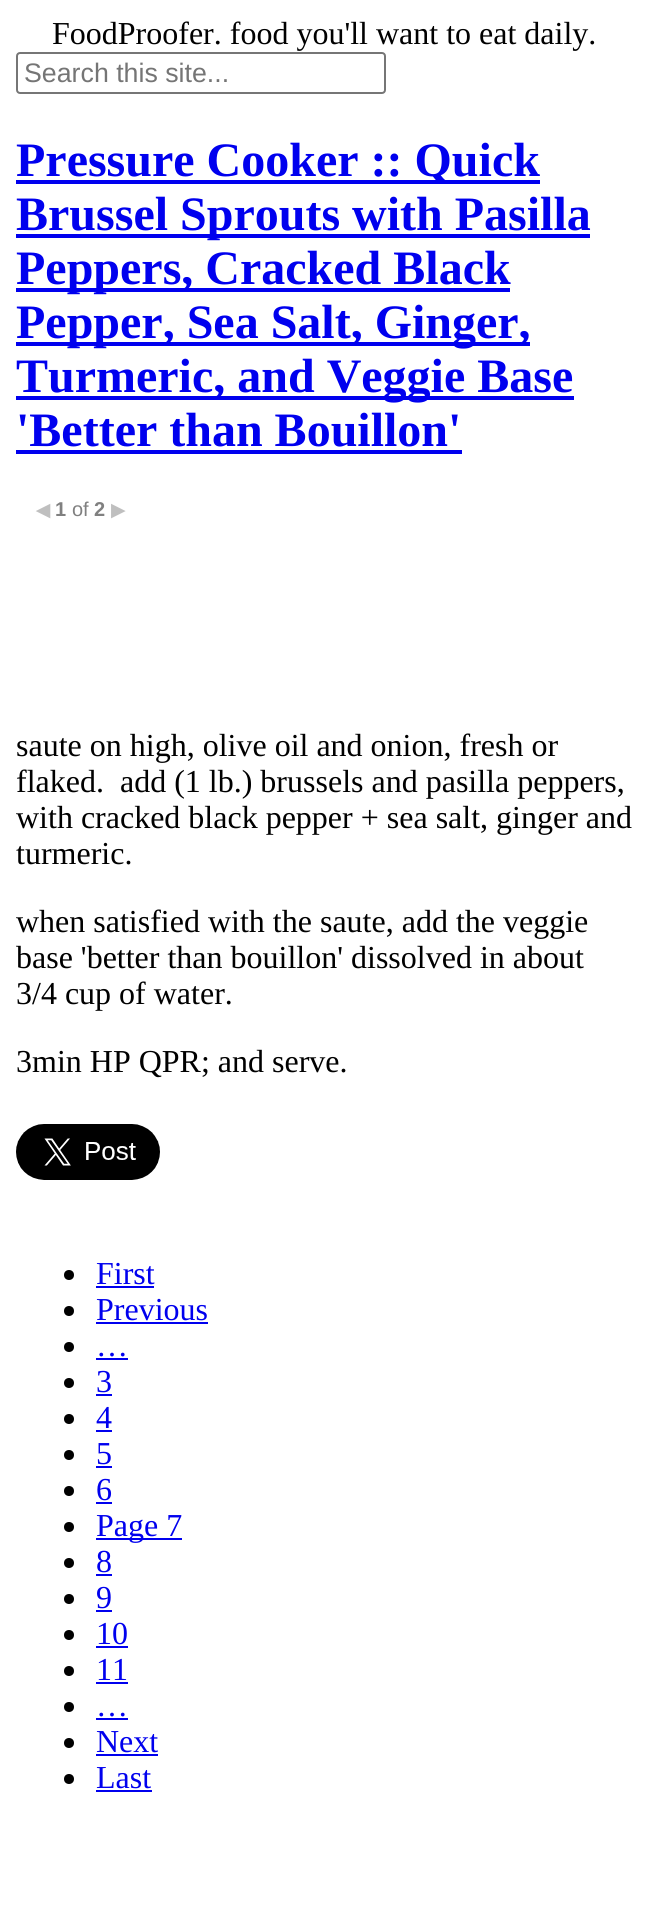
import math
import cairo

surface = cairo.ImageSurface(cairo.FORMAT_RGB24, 648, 1929)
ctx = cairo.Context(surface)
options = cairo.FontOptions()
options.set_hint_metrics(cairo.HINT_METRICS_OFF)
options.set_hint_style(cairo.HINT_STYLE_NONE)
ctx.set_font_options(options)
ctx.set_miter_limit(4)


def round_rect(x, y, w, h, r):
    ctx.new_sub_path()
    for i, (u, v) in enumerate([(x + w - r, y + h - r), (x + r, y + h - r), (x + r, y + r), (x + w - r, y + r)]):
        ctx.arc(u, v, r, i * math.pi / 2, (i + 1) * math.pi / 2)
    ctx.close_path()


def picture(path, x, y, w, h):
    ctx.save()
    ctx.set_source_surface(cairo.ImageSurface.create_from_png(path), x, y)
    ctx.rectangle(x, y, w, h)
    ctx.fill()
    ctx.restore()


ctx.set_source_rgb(1, 1, 1)
ctx.paint()
ctx.select_font_face("Liberation Serif")
ctx.set_font_size(32)
ctx.set_source_rgb(0, 0, 0)
ctx.move_to(52, 44)
ctx.show_text("FoodProofer. food you'll want to eat daily.")
round_rect(17, 53, 368, 40, 3)
ctx.set_source_rgb(0.463, 0.463, 0.463)
ctx.stroke()
ctx.select_font_face("Liberation Sans")
ctx.set_font_size(26.75)
ctx.set_source_rgb(0.459, 0.459, 0.459)
ctx.move_to(24, 82)
ctx.show_text("Search this site...")
ctx.set_source_rgb(0, 0, 0.933)
ctx.rectangle(16, 180, 524, 4)
ctx.fill()
ctx.select_font_face("Liberation Serif", cairo.FONT_SLANT_NORMAL, cairo.FONT_WEIGHT_BOLD)
ctx.set_font_size(48)
ctx.move_to(16, 176)
ctx.show_text("Pressure Cooker :: Quick")
ctx.rectangle(16, 234, 574, 4)
ctx.fill()
ctx.move_to(16, 230)
ctx.show_text("Brussel Sprouts with Pasilla")
ctx.rectangle(16, 288, 494, 4)
ctx.fill()
ctx.move_to(16, 284)
ctx.show_text("Peppers, Cracked Black")
ctx.rectangle(16, 342, 514, 4)
ctx.fill()
ctx.move_to(16, 338)
ctx.show_text("Pepper, Sea Salt, Ginger,")
ctx.rectangle(16, 396, 558, 4)
ctx.fill()
ctx.move_to(16, 392)
ctx.show_text("Turmeric, and Veggie Base")
ctx.move_to(16, 446)
ctx.show_text("'Better than Bouillon'")
ctx.rectangle(16, 450, 446, 4)
ctx.fill()
ctx.select_font_face("DejaVu Sans", cairo.FONT_SLANT_NORMAL, cairo.FONT_WEIGHT_BOLD)
ctx.set_font_size(18)
ctx.set_source_rgb(0.749, 0.749, 0.749)
ctx.move_to(36, 516)
ctx.show_text("◀")
ctx.select_font_face("Liberation Sans", cairo.FONT_SLANT_NORMAL, cairo.FONT_WEIGHT_BOLD)
ctx.set_font_size(20)
ctx.set_source_rgb(0.502, 0.502, 0.502)
ctx.move_to(55, 516)
ctx.show_text("1")
ctx.select_font_face("Liberation Sans")
ctx.move_to(72, 516)
ctx.show_text("of")
ctx.select_font_face("Liberation Sans", cairo.FONT_SLANT_NORMAL, cairo.FONT_WEIGHT_BOLD)
ctx.move_to(94, 516)
ctx.show_text("2")
ctx.select_font_face("DejaVu Sans", cairo.FONT_SLANT_NORMAL, cairo.FONT_WEIGHT_BOLD)
ctx.set_font_size(18)
ctx.set_source_rgb(0.749, 0.749, 0.749)
ctx.move_to(111, 516)
ctx.show_text("▶")
ctx.select_font_face("Liberation Serif")
ctx.set_font_size(32)
ctx.set_source_rgb(0, 0, 0)
ctx.move_to(16, 756)
ctx.show_text("saute on high, olive oil and onion, fresh or")
ctx.move_to(16, 792)
ctx.show_text("flaked.  add (1 lb.) brussels and pasilla peppers,")
ctx.move_to(16, 828)
ctx.show_text("with cracked black pepper + sea salt, ginger and")
ctx.move_to(16, 864)
ctx.show_text("turmeric.")
ctx.move_to(16, 932)
ctx.show_text("when satisfied with the saute, add the veggie")
ctx.move_to(16, 968)
ctx.show_text("base 'better than bouillon' dissolved in about")
ctx.move_to(16, 1004)
ctx.show_text("3/4 cup of water.")
ctx.move_to(16, 1072)
ctx.show_text("3min HP QPR; and serve.")
picture("img1.png", 16, 1124, 144, 56)
ctx.arc(69, 1275, 5, 0, 2 * math.pi)
ctx.fill()
ctx.set_source_rgb(0, 0, 0.933)
ctx.move_to(96, 1284)
ctx.show_text("First")
ctx.rectangle(96, 1286, 58, 2)
ctx.fill()
ctx.set_source_rgb(0, 0, 0)
ctx.arc(69, 1311, 5, 0, 2 * math.pi)
ctx.fill()
ctx.set_source_rgb(0, 0, 0.933)
ctx.move_to(96, 1320)
ctx.show_text("Previous")
ctx.rectangle(96, 1322, 112, 2)
ctx.fill()
ctx.set_source_rgb(0, 0, 0)
ctx.arc(69, 1347, 5, 0, 2 * math.pi)
ctx.fill()
ctx.set_source_rgb(0, 0, 0.933)
ctx.move_to(96, 1356)
ctx.show_text("…")
ctx.rectangle(96, 1358, 32, 2)
ctx.fill()
ctx.set_source_rgb(0, 0, 0)
ctx.arc(69, 1383, 5, 0, 2 * math.pi)
ctx.fill()
ctx.set_source_rgb(0, 0, 0.933)
ctx.move_to(96, 1392)
ctx.show_text("3")
ctx.rectangle(96, 1394, 16, 2)
ctx.fill()
ctx.set_source_rgb(0, 0, 0)
ctx.arc(69, 1419, 5, 0, 2 * math.pi)
ctx.fill()
ctx.set_source_rgb(0, 0, 0.933)
ctx.move_to(96, 1428)
ctx.show_text("4")
ctx.rectangle(96, 1430, 16, 2)
ctx.fill()
ctx.set_source_rgb(0, 0, 0)
ctx.arc(69, 1455, 5, 0, 2 * math.pi)
ctx.fill()
ctx.set_source_rgb(0, 0, 0.933)
ctx.move_to(96, 1464)
ctx.show_text("5")
ctx.rectangle(96, 1466, 16, 2)
ctx.fill()
ctx.set_source_rgb(0, 0, 0)
ctx.arc(69, 1491, 5, 0, 2 * math.pi)
ctx.fill()
ctx.set_source_rgb(0, 0, 0.933)
ctx.move_to(96, 1500)
ctx.show_text("6")
ctx.rectangle(96, 1502, 16, 2)
ctx.fill()
ctx.set_source_rgb(0, 0, 0)
ctx.arc(69, 1527, 5, 0, 2 * math.pi)
ctx.fill()
ctx.set_source_rgb(0, 0, 0.933)
ctx.rectangle(96, 1538, 86, 2)
ctx.fill()
ctx.move_to(96, 1536)
ctx.show_text("Page 7")
ctx.set_source_rgb(0, 0, 0)
ctx.new_path()
ctx.arc(69, 1563, 5, 0, 2 * math.pi)
ctx.fill()
ctx.set_source_rgb(0, 0, 0.933)
ctx.move_to(96, 1572)
ctx.show_text("8")
ctx.rectangle(96, 1574, 16, 2)
ctx.fill()
ctx.set_source_rgb(0, 0, 0)
ctx.arc(69, 1599, 5, 0, 2 * math.pi)
ctx.fill()
ctx.set_source_rgb(0, 0, 0.933)
ctx.move_to(96, 1608)
ctx.show_text("9")
ctx.rectangle(96, 1610, 16, 2)
ctx.fill()
ctx.set_source_rgb(0, 0, 0)
ctx.arc(69, 1635, 5, 0, 2 * math.pi)
ctx.fill()
ctx.set_source_rgb(0, 0, 0.933)
ctx.move_to(96, 1644)
ctx.show_text("10")
ctx.rectangle(96, 1646, 32, 2)
ctx.fill()
ctx.set_source_rgb(0, 0, 0)
ctx.arc(69, 1671, 5, 0, 2 * math.pi)
ctx.fill()
ctx.set_source_rgb(0, 0, 0.933)
ctx.move_to(96, 1680)
ctx.show_text("11")
ctx.rectangle(96, 1682, 32, 2)
ctx.fill()
ctx.set_source_rgb(0, 0, 0)
ctx.arc(69, 1707, 5, 0, 2 * math.pi)
ctx.fill()
ctx.set_source_rgb(0, 0, 0.933)
ctx.move_to(96, 1716)
ctx.show_text("…")
ctx.rectangle(96, 1718, 32, 2)
ctx.fill()
ctx.set_source_rgb(0, 0, 0)
ctx.arc(69, 1743, 5, 0, 2 * math.pi)
ctx.fill()
ctx.set_source_rgb(0, 0, 0.933)
ctx.move_to(96, 1752)
ctx.show_text("Next")
ctx.rectangle(96, 1754, 62, 2)
ctx.fill()
ctx.set_source_rgb(0, 0, 0)
ctx.arc(69, 1779, 5, 0, 2 * math.pi)
ctx.fill()
ctx.set_source_rgb(0, 0, 0.933)
ctx.move_to(96, 1788)
ctx.show_text("Last")
ctx.rectangle(96, 1790, 56, 2)
ctx.fill()
surface.write_to_png("page.png")
